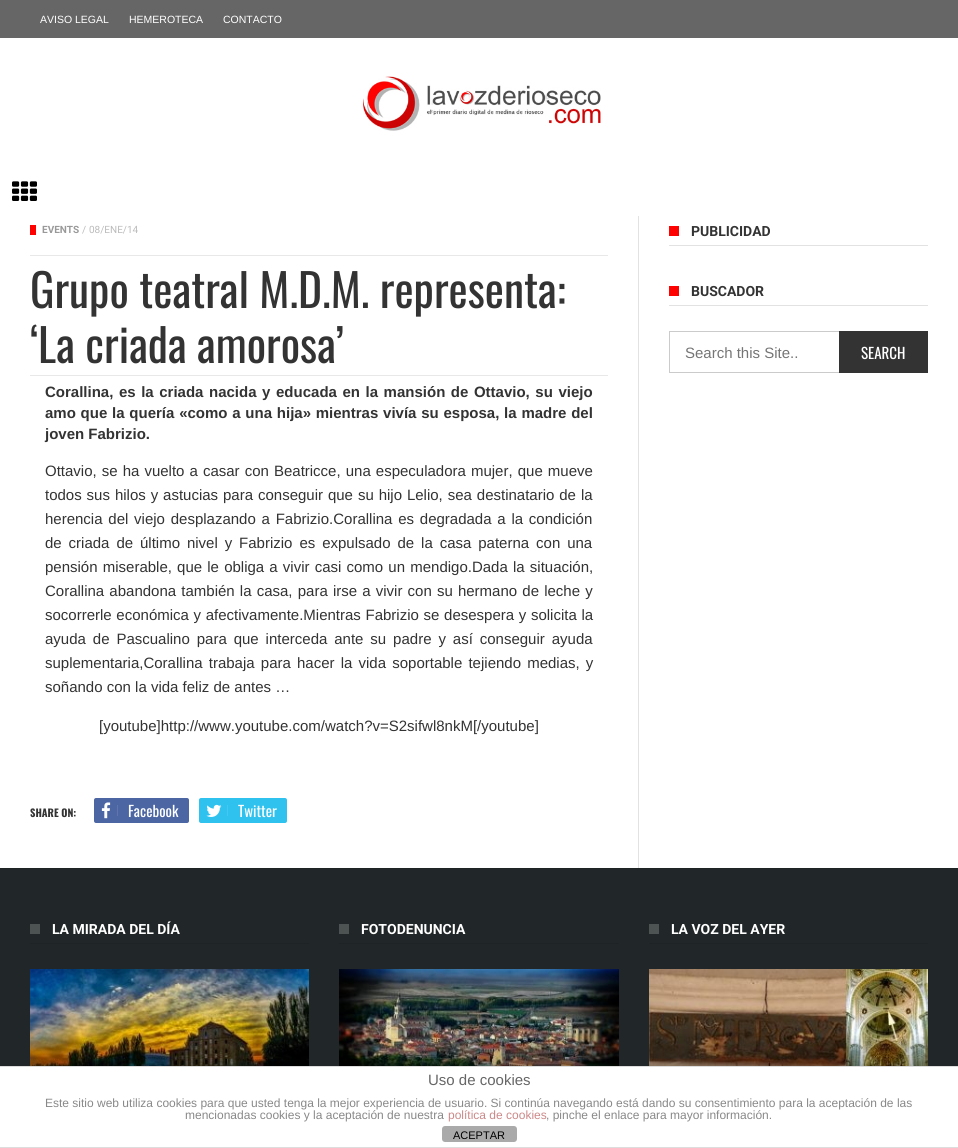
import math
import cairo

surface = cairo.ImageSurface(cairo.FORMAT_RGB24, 958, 1148)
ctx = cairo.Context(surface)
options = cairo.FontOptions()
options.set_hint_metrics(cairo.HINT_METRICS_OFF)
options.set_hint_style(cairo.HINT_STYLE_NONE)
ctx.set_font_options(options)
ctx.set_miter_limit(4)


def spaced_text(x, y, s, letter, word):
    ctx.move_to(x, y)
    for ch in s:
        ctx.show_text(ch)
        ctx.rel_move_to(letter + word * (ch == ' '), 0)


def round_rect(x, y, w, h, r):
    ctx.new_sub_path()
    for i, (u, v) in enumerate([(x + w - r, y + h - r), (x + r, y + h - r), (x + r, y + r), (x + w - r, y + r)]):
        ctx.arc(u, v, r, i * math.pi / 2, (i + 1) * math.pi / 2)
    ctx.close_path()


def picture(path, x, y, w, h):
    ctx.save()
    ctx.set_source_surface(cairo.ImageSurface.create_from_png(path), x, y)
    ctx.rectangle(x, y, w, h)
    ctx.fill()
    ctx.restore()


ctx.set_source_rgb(1, 1, 1)
ctx.paint()
ctx.set_source_rgb(0.4, 0.4, 0.4)
ctx.rectangle(0, 0, 958, 38)
ctx.fill()
ctx.select_font_face("Liberation Sans")
ctx.set_font_size(10.5)
ctx.set_source_rgb(1, 1, 1)
ctx.move_to(40, 23)
ctx.show_text("AVISO LEGAL")
ctx.move_to(129, 23)
ctx.show_text("HEMEROTECA")
ctx.move_to(223, 23)
ctx.show_text("CONTACTO")
picture("img1.png", 363, 76, 238, 55)
picture("img2.png", 12, 181, 25, 20)
ctx.set_source_rgb(0.886, 0.886, 0.886)
ctx.rectangle(638, 216, 1, 652)
ctx.fill()
ctx.set_source_rgb(0.996, 0.008, 0.004)
ctx.rectangle(30, 225, 6, 10)
ctx.fill()
ctx.select_font_face("Roboto", cairo.FONT_SLANT_NORMAL, cairo.FONT_WEIGHT_BOLD)
ctx.set_font_size(10)
ctx.set_source_rgb(0.6, 0.6, 0.6)
ctx.move_to(42, 233)
ctx.show_text("EVENTS")
ctx.select_font_face("Roboto")
ctx.set_source_rgb(0.733, 0.733, 0.733)
ctx.move_to(82, 233)
ctx.show_text("/")
ctx.move_to(89, 233)
ctx.show_text("08/ENE/14")
ctx.set_source_rgb(0.91, 0.91, 0.91)
ctx.rectangle(30, 255, 578, 1)
ctx.fill()
ctx.select_font_face("Oswald")
ctx.set_font_size(45.6)
ctx.set_source_rgb(0.2, 0.2, 0.2)
ctx.move_to(30, 308)
ctx.show_text("Grupo teatral M.D.M. representa:")
ctx.move_to(30, 363)
ctx.show_text("‘La criada amorosa’")
ctx.set_source_rgb(0.91, 0.91, 0.91)
ctx.rectangle(30, 375, 578, 1)
ctx.fill()
ctx.select_font_face("Liberation Sans", cairo.FONT_SLANT_NORMAL, cairo.FONT_WEIGHT_BOLD)
ctx.set_font_size(15)
ctx.set_source_rgb(0.2, 0.2, 0.2)
spaced_text(45, 397, "Corallina, es la criada nacida y educada en la mansión de Ottavio, su viejo", 0, 1.4)
spaced_text(45, 418, "amo que la quería «como a una hija» mientras vivía su esposa, la madre del", 0, 0.6)
ctx.move_to(45, 439)
ctx.show_text("joven Fabrizio.")
ctx.select_font_face("Liberation Sans")
spaced_text(45, 476, "Ottavio, se ha vuelto a casar con Beatricce, una especuladora mujer, que mueve", 0, 0.9)
spaced_text(45, 500, "todos sus hilos y astucias para conseguir que su hijo Lelio, sea destinatario de la", 0, 0.75)
spaced_text(45, 524, "herencia del viejo desplazando a Fabrizio.Corallina es degradada a la condición", 0, 1.6)
spaced_text(45, 548, "de criada de último nivel y Fabrizio es expulsado de la casa paterna con una", 0, 2.75)
spaced_text(45, 572, "pensión miserable, que le obliga a vivir casi como un mendigo.Dada la situación,", 0, 1)
spaced_text(45, 596, "Corallina abandona también la casa, para irse a vivir con su hermano de leche y", 0, 1)
spaced_text(45, 620, "socorrerle económica y afectivamente.Mientras Fabrizio se desespera y solicita la", 0, 0.5)
spaced_text(45, 644, "ayuda de Pascualino para que interceda ante su padre y así conseguir ayuda", 0, 2.75)
spaced_text(45, 668, "suplementaria,Corallina trabaja para hacer la vida soportable tejiendo medias, y", 0, 2)
ctx.move_to(45, 692)
ctx.show_text("soñando con la vida feliz de antes …")
ctx.move_to(99, 731)
ctx.show_text("[youtube]http://www.youtube.com/watch?v=S2sifwl8nkM[/youtube]")
ctx.select_font_face("Oswald", cairo.FONT_SLANT_NORMAL, cairo.FONT_WEIGHT_BOLD)
ctx.set_font_size(10.5)
ctx.move_to(30, 817)
ctx.show_text("SHARE ON:")
ctx.set_source_rgb(0.298, 0.4, 0.643)
round_rect(94, 798, 95, 25, 2)
ctx.fill()
picture("img3.png", 101, 802, 10, 17)
ctx.set_source_rgb(0.369, 0.459, 0.678)
ctx.rectangle(117, 805, 1, 11)
ctx.fill()
ctx.select_font_face("Oswald")
ctx.set_font_size(15)
ctx.set_source_rgb(1, 1, 1)
ctx.move_to(128, 817)
ctx.show_text("Facebook")
ctx.set_source_rgb(0.184, 0.761, 0.937)
round_rect(199, 798, 88, 25, 2)
ctx.fill()
picture("img4.png", 206, 804, 16, 13)
ctx.set_source_rgb(0.267, 0.784, 0.945)
ctx.rectangle(227, 805, 1, 11)
ctx.fill()
ctx.set_source_rgb(1, 1, 1)
ctx.move_to(238, 817)
ctx.show_text("Twitter")
ctx.set_source_rgb(0.886, 0.886, 0.886)
ctx.rectangle(669, 245, 259, 1)
ctx.fill()
ctx.set_source_rgb(0.996, 0.008, 0.004)
ctx.rectangle(669, 226, 10, 10)
ctx.fill()
ctx.select_font_face("Roboto", cairo.FONT_SLANT_NORMAL, cairo.FONT_WEIGHT_BOLD)
ctx.set_font_size(14)
ctx.set_source_rgb(0.2, 0.2, 0.2)
ctx.move_to(691, 236)
ctx.show_text("PUBLICIDAD")
ctx.set_source_rgb(0.886, 0.886, 0.886)
ctx.rectangle(669, 305, 259, 1)
ctx.fill()
ctx.set_source_rgb(0.996, 0.008, 0.004)
ctx.rectangle(669, 286, 10, 10)
ctx.fill()
ctx.set_source_rgb(0.2, 0.2, 0.2)
ctx.move_to(691, 296)
ctx.show_text("BUSCADOR")
ctx.rectangle(669.5, 331.5, 258, 41)
ctx.set_source_rgb(0.796, 0.796, 0.796)
ctx.set_line_width(1)
ctx.stroke()
ctx.select_font_face("Liberation Sans")
ctx.set_font_size(15)
ctx.set_source_rgb(0.459, 0.459, 0.459)
ctx.move_to(685, 358)
ctx.show_text("Search this Site..")
ctx.set_source_rgb(0.2, 0.2, 0.2)
ctx.rectangle(839, 331, 89, 42)
ctx.fill()
ctx.select_font_face("Oswald")
ctx.set_source_rgb(1, 1, 1)
ctx.move_to(861, 359)
ctx.show_text("SEARCH")
ctx.set_source_rgb(0.129, 0.153, 0.157)
ctx.rectangle(0, 869, 958, 197)
ctx.fill()
ctx.set_source_rgb(0.118, 0.137, 0.141)
ctx.rectangle(0, 868, 958, 1)
ctx.fill()
ctx.set_source_rgb(0.118, 0.141, 0.145)
ctx.rectangle(30, 943, 279, 1)
ctx.fill()
ctx.set_source_rgb(0.302, 0.322, 0.325)
ctx.rectangle(30, 924, 10, 10)
ctx.fill()
ctx.select_font_face("Roboto", cairo.FONT_SLANT_NORMAL, cairo.FONT_WEIGHT_BOLD)
ctx.set_font_size(14)
ctx.set_source_rgb(1, 1, 1)
ctx.move_to(52, 934)
ctx.show_text("LA MIRADA DEL DÍA")
picture("img5.png", 30, 969, 279, 97)
ctx.set_source_rgb(0.118, 0.141, 0.145)
ctx.rectangle(339, 943, 280, 1)
ctx.fill()
ctx.set_source_rgb(0.302, 0.322, 0.325)
ctx.rectangle(339, 924, 10, 10)
ctx.fill()
ctx.set_source_rgb(1, 1, 1)
ctx.move_to(361, 934)
ctx.show_text("FOTODENUNCIA")
picture("img6.png", 339, 969, 280, 97)
ctx.set_source_rgb(0.118, 0.141, 0.145)
ctx.rectangle(649, 943, 279, 1)
ctx.fill()
ctx.set_source_rgb(0.302, 0.322, 0.325)
ctx.rectangle(649, 924, 10, 10)
ctx.fill()
ctx.set_source_rgb(1, 1, 1)
ctx.move_to(671, 934)
ctx.show_text("LA VOZ DEL AYER")
picture("img7.png", 649, 969, 279, 97)
ctx.set_source_rgb(0.867, 0.867, 0.867)
ctx.rectangle(0, 1066, 958, 1)
ctx.fill()
ctx.rectangle(0, 1147, 958, 1)
ctx.fill()
ctx.select_font_face("Liberation Sans")
ctx.set_font_size(15)
ctx.set_source_rgb(0.4, 0.4, 0.4)
ctx.move_to(428, 1085)
ctx.show_text("Uso de cookies")
ctx.set_font_size(12)
ctx.set_source_rgb(0.533, 0.533, 0.533)
ctx.move_to(45, 1107)
ctx.show_text("Este sitio web utiliza cookies para que usted tenga la mejor experiencia de usuario. Si continúa navegando está dando su consentimiento para la aceptación de las")
ctx.move_to(185, 1119)
ctx.show_text("mencionadas cookies y la aceptación de nuestra")
ctx.set_source_rgb(0.8, 0.533, 0.533)
ctx.move_to(448, 1119)
ctx.show_text("política de cookies")
ctx.set_source_rgb(0.533, 0.533, 0.533)
ctx.move_to(546, 1119)
ctx.show_text(", pinche el enlace para mayor información.")
ctx.set_source_rgb(0.667, 0.667, 0.667)
round_rect(442, 1126, 75, 16, 3)
ctx.fill()
ctx.set_font_size(11)
ctx.set_source_rgb(0, 0, 0)
ctx.move_to(453, 1139)
ctx.show_text("ACEPTAR")
surface.write_to_png("page.png")
